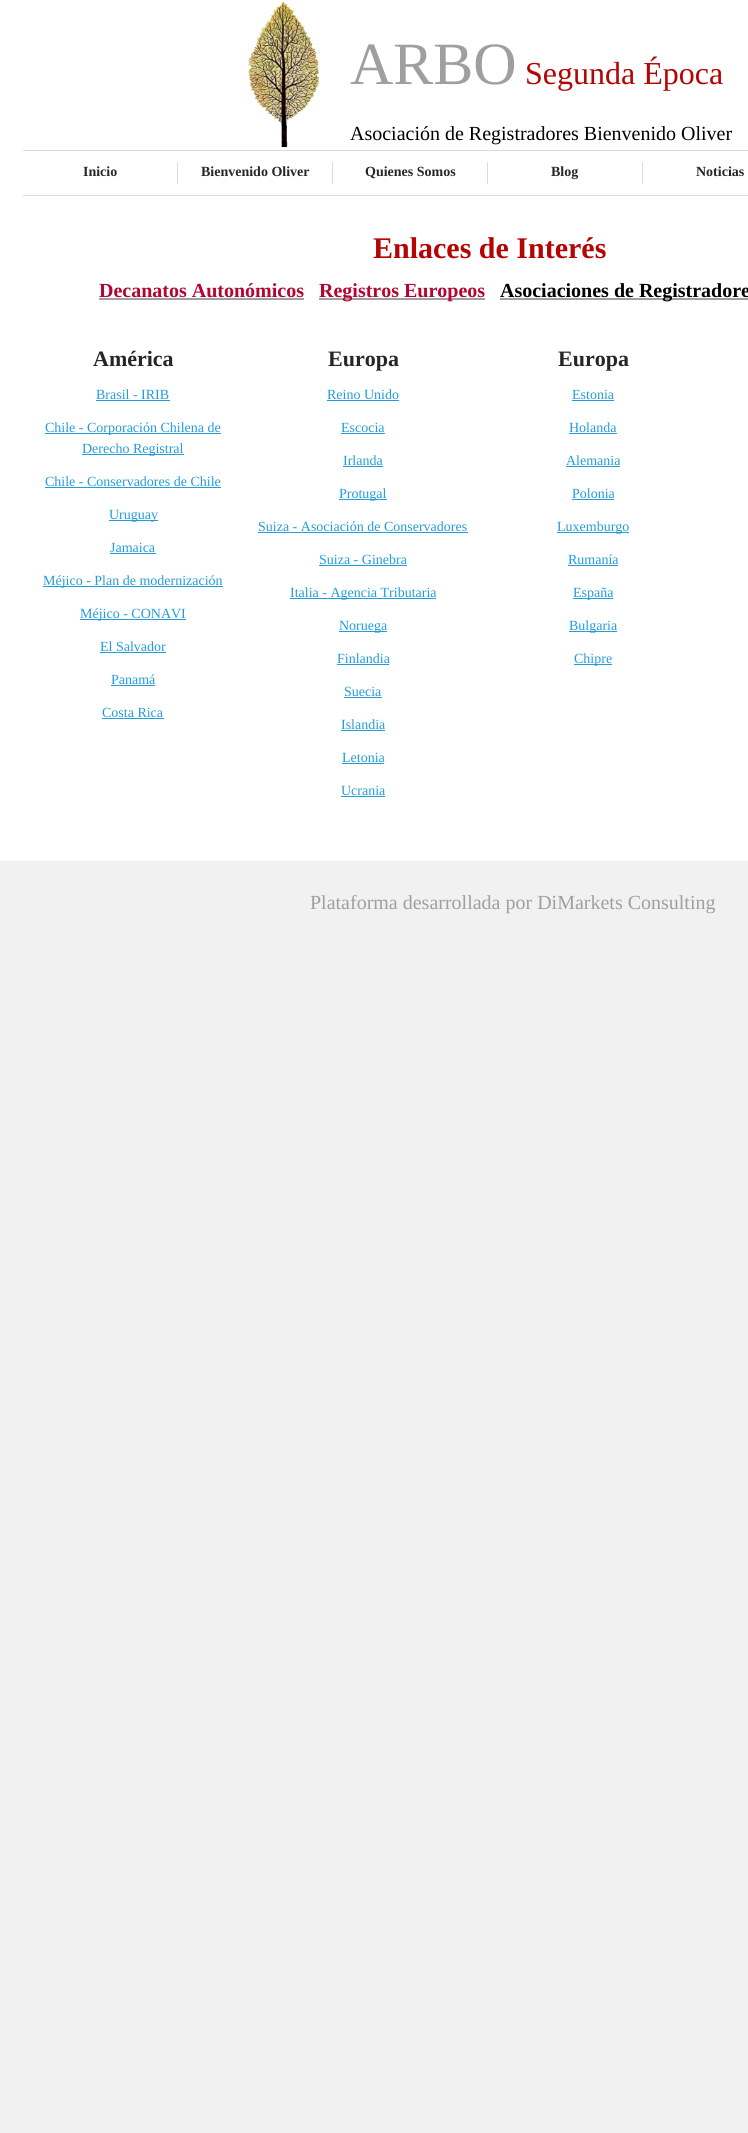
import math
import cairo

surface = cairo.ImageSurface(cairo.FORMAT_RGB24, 748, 2133)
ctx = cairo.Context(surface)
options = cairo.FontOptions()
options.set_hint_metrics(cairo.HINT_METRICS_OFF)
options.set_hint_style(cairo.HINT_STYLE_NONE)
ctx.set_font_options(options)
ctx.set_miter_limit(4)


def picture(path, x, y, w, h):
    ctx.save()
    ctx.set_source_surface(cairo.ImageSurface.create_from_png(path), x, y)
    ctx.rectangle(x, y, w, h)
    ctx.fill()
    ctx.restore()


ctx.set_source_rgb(0.945, 0.945, 0.945)
ctx.paint()
ctx.set_source_rgb(1, 1, 1)
ctx.rectangle(0, 0, 748, 861)
ctx.fill()
picture("img1.png", 248, 2, 71, 145)
ctx.select_font_face("Liberation Serif")
ctx.set_font_size(60)
ctx.set_source_rgb(0.624, 0.624, 0.624)
ctx.move_to(350, 84)
ctx.show_text("ARBO")
ctx.set_font_size(32)
ctx.set_source_rgb(0.706, 0.016, 0.016)
ctx.move_to(525, 84)
ctx.show_text("Segunda Época")
ctx.set_font_size(20)
ctx.set_source_rgb(0, 0, 0)
ctx.move_to(350, 140)
ctx.show_text("Asociación de Registradores Bienvenido Oliver")
ctx.set_source_rgb(0.863, 0.863, 0.863)
ctx.rectangle(23, 150, 725, 1)
ctx.fill()
ctx.rectangle(23, 195, 725, 1)
ctx.fill()
ctx.rectangle(177, 162, 1, 22)
ctx.fill()
ctx.select_font_face("Liberation Serif", cairo.FONT_SLANT_NORMAL, cairo.FONT_WEIGHT_BOLD)
ctx.set_font_size(14)
ctx.set_source_rgb(0.149, 0.149, 0.149)
ctx.move_to(83, 176)
ctx.show_text("Inicio")
ctx.set_source_rgb(0.863, 0.863, 0.863)
ctx.rectangle(332, 162, 1, 22)
ctx.fill()
ctx.set_source_rgb(0.149, 0.149, 0.149)
ctx.move_to(201, 176)
ctx.show_text("Bienvenido Oliver")
ctx.set_source_rgb(0.863, 0.863, 0.863)
ctx.rectangle(487, 162, 1, 22)
ctx.fill()
ctx.set_source_rgb(0.149, 0.149, 0.149)
ctx.move_to(365, 176)
ctx.show_text("Quienes Somos")
ctx.set_source_rgb(0.863, 0.863, 0.863)
ctx.rectangle(642, 162, 1, 22)
ctx.fill()
ctx.set_source_rgb(0.149, 0.149, 0.149)
ctx.move_to(551, 176)
ctx.show_text("Blog")
ctx.move_to(696, 176)
ctx.show_text("Noticias")
ctx.set_font_size(30)
ctx.set_source_rgb(0.706, 0.016, 0.016)
ctx.move_to(373, 258)
ctx.show_text("Enlaces de Interés")
ctx.set_font_size(20)
ctx.set_source_rgb(0.706, 0.016, 0.192)
ctx.move_to(99, 297)
ctx.show_text("Decanatos Autonómicos")
ctx.set_source_rgb(0.624, 0.624, 0.624)
ctx.rectangle(99, 298, 205, 2)
ctx.fill()
ctx.rectangle(319, 298, 166, 2)
ctx.fill()
ctx.set_source_rgb(0.706, 0.016, 0.192)
ctx.move_to(319, 297)
ctx.show_text("Registros Europeos")
ctx.set_source_rgb(0.624, 0.624, 0.624)
ctx.rectangle(500, 298, 248, 2)
ctx.fill()
ctx.set_source_rgb(0, 0, 0)
ctx.move_to(500, 297)
ctx.show_text("Asociaciones de Registradore")
ctx.set_font_size(22)
ctx.set_source_rgb(0.149, 0.149, 0.149)
ctx.move_to(93, 366)
ctx.show_text("América")
ctx.select_font_face("Liberation Serif")
ctx.set_font_size(14)
ctx.set_source_rgb(0.137, 0.612, 0.855)
ctx.move_to(96, 399)
ctx.show_text("Brasil - IRIB")
ctx.rectangle(96, 400, 74, 1)
ctx.fill()
ctx.rectangle(45, 433, 176, 1)
ctx.fill()
ctx.move_to(45, 432)
ctx.show_text("Chile - Corporación Chilena de")
ctx.rectangle(82, 454, 102, 1)
ctx.fill()
ctx.move_to(82, 453)
ctx.show_text("Derecho Registral")
ctx.move_to(45, 486)
ctx.show_text("Chile - Conservadores de Chile")
ctx.rectangle(45, 487, 176, 1)
ctx.fill()
ctx.rectangle(109, 520, 49, 1)
ctx.fill()
ctx.move_to(109, 519)
ctx.show_text("Uruguay")
ctx.move_to(110, 552)
ctx.show_text("Jamaica")
ctx.rectangle(110, 553, 46, 1)
ctx.fill()
ctx.rectangle(43, 586, 180, 1)
ctx.fill()
ctx.move_to(43, 585)
ctx.show_text("Méjico - Plan de modernización")
ctx.rectangle(80, 619, 106, 1)
ctx.fill()
ctx.move_to(80, 618)
ctx.show_text("Méjico - CONAVI")
ctx.move_to(100, 651)
ctx.show_text("El Salvador")
ctx.rectangle(100, 652, 66, 1)
ctx.fill()
ctx.move_to(111, 684)
ctx.show_text("Panamá")
ctx.rectangle(111, 685, 44, 1)
ctx.fill()
ctx.move_to(102, 717)
ctx.show_text("Costa Rica")
ctx.rectangle(102, 718, 62, 1)
ctx.fill()
ctx.select_font_face("Liberation Serif", cairo.FONT_SLANT_NORMAL, cairo.FONT_WEIGHT_BOLD)
ctx.set_font_size(22)
ctx.set_source_rgb(0.149, 0.149, 0.149)
ctx.move_to(328, 366)
ctx.show_text("Europa")
ctx.select_font_face("Liberation Serif")
ctx.set_font_size(14)
ctx.set_source_rgb(0.137, 0.612, 0.855)
ctx.move_to(327, 399)
ctx.show_text("Reino Unido")
ctx.rectangle(327, 400, 72, 1)
ctx.fill()
ctx.move_to(341, 432)
ctx.show_text("Escocia")
ctx.rectangle(341, 433, 44, 1)
ctx.fill()
ctx.move_to(343, 465)
ctx.show_text("Irlanda")
ctx.rectangle(343, 466, 40, 1)
ctx.fill()
ctx.rectangle(339, 499, 48, 1)
ctx.fill()
ctx.move_to(339, 498)
ctx.show_text("Protugal")
ctx.move_to(258, 531)
ctx.show_text("Suiza - Asociación de Conservadores")
ctx.rectangle(258, 532, 210, 1)
ctx.fill()
ctx.move_to(319, 564)
ctx.show_text("Suiza - Ginebra")
ctx.rectangle(319, 565, 88, 1)
ctx.fill()
ctx.rectangle(290, 598, 146, 1)
ctx.fill()
ctx.move_to(290, 597)
ctx.show_text("Italia - Agencia Tributaria")
ctx.rectangle(339, 631, 48, 1)
ctx.fill()
ctx.move_to(339, 630)
ctx.show_text("Noruega")
ctx.move_to(337, 663)
ctx.show_text("Finlandia")
ctx.rectangle(337, 664, 52, 1)
ctx.fill()
ctx.move_to(344, 696)
ctx.show_text("Suecia")
ctx.rectangle(344, 697, 38, 1)
ctx.fill()
ctx.move_to(341, 729)
ctx.show_text("Islandia")
ctx.rectangle(341, 730, 44, 1)
ctx.fill()
ctx.move_to(342, 762)
ctx.show_text("Letonia")
ctx.rectangle(342, 763, 42, 1)
ctx.fill()
ctx.move_to(341, 795)
ctx.show_text("Ucrania")
ctx.rectangle(341, 796, 44, 1)
ctx.fill()
ctx.select_font_face("Liberation Serif", cairo.FONT_SLANT_NORMAL, cairo.FONT_WEIGHT_BOLD)
ctx.set_font_size(22)
ctx.set_source_rgb(0.149, 0.149, 0.149)
ctx.move_to(558, 366)
ctx.show_text("Europa")
ctx.select_font_face("Liberation Serif")
ctx.set_font_size(14)
ctx.set_source_rgb(0.137, 0.612, 0.855)
ctx.move_to(572, 399)
ctx.show_text("Estonia")
ctx.rectangle(572, 400, 42, 1)
ctx.fill()
ctx.move_to(569, 432)
ctx.show_text("Holanda")
ctx.rectangle(569, 433, 48, 1)
ctx.fill()
ctx.move_to(566, 465)
ctx.show_text("Alemania")
ctx.rectangle(566, 466, 54, 1)
ctx.fill()
ctx.move_to(572, 498)
ctx.show_text("Polonia")
ctx.rectangle(572, 499, 42, 1)
ctx.fill()
ctx.rectangle(557, 532, 72, 1)
ctx.fill()
ctx.move_to(557, 531)
ctx.show_text("Luxemburgo")
ctx.move_to(568, 564)
ctx.show_text("Rumanía")
ctx.rectangle(568, 565, 50, 1)
ctx.fill()
ctx.rectangle(573, 598, 40, 1)
ctx.fill()
ctx.move_to(573, 597)
ctx.show_text("España")
ctx.rectangle(569, 631, 48, 1)
ctx.fill()
ctx.move_to(569, 630)
ctx.show_text("Bulgaria")
ctx.rectangle(574, 664, 38, 1)
ctx.fill()
ctx.move_to(574, 663)
ctx.show_text("Chipre")
ctx.set_font_size(20)
ctx.set_source_rgb(0.624, 0.624, 0.624)
ctx.move_to(310, 909)
ctx.show_text("Plataforma desarrollada por DiMarkets Consulting")
surface.write_to_png("page.png")
